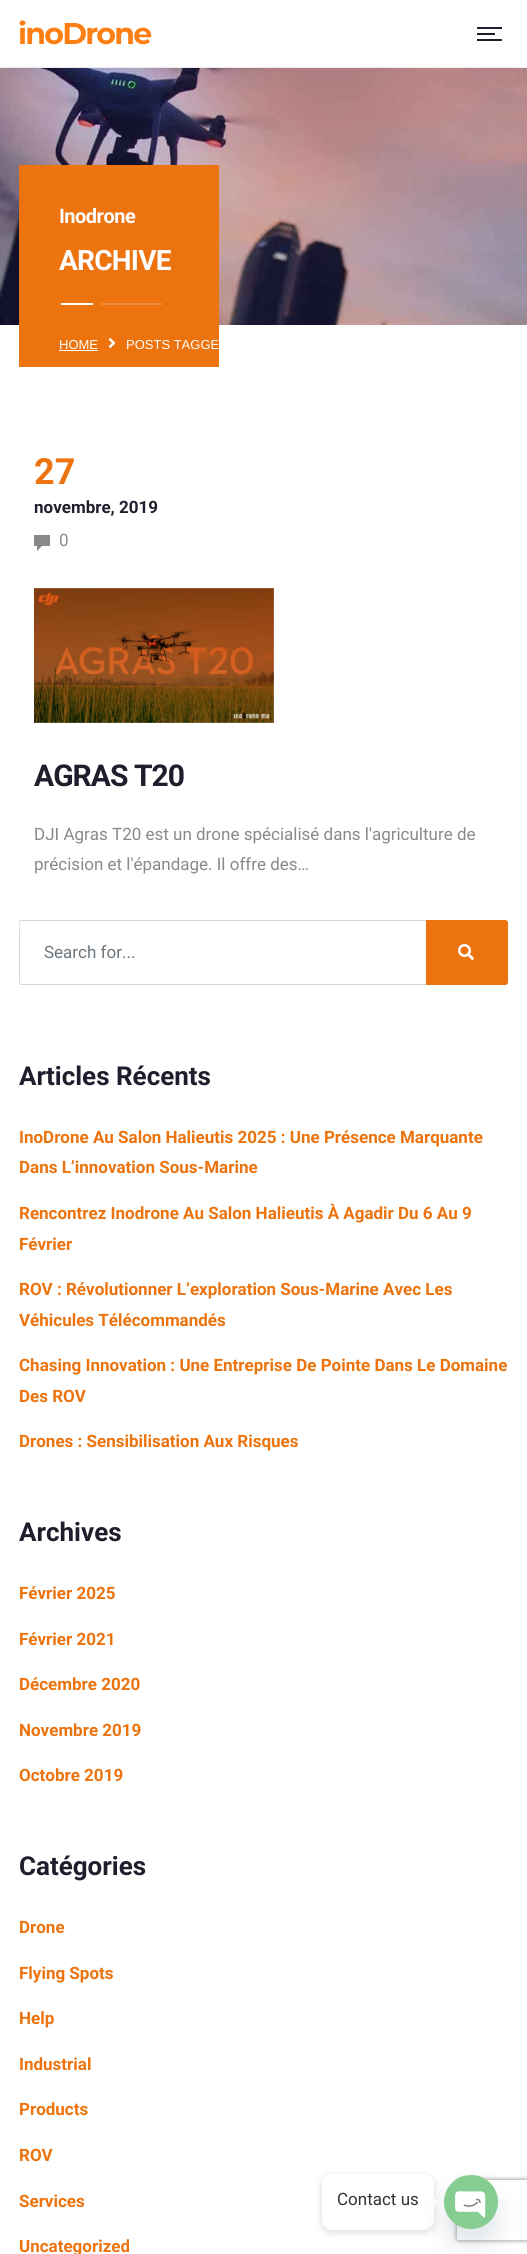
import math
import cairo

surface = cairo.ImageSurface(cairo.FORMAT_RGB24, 527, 2254)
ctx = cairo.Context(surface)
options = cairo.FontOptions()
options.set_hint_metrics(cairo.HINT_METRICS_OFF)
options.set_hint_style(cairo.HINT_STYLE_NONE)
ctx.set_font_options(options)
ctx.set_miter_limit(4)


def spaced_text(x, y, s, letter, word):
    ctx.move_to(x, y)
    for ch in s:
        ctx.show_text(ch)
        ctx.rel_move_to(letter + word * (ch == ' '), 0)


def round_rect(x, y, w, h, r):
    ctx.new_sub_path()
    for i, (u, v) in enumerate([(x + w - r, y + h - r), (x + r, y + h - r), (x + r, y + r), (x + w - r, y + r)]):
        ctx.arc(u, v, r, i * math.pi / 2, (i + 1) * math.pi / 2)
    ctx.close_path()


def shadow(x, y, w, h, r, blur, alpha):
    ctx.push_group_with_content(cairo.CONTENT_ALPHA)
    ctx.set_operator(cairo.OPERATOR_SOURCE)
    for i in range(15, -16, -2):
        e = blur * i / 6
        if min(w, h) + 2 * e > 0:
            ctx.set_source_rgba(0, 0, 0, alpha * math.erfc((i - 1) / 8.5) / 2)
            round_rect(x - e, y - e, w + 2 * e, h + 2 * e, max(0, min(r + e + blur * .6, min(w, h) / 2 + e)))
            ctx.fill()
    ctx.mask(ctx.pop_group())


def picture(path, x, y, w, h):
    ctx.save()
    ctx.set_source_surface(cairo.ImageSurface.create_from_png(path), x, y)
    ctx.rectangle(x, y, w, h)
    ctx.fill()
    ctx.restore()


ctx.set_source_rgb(1, 1, 1)
ctx.paint()
ctx.set_source_rgb(0.922, 0.922, 0.922)
ctx.rectangle(0, 67, 527, 1)
ctx.fill()
ctx.select_font_face("Montserrat Thin")
ctx.set_font_size(30)
ctx.set_source_rgb(0.992, 0.494, 0.078)
spaced_text(18, 44, "inoDrone", -1.75, 0)
ctx.set_source_rgb(0.118, 0.118, 0.176)
ctx.rectangle(477, 33, 18, 2)
ctx.fill()
ctx.rectangle(477, 27, 25, 2)
ctx.fill()
ctx.rectangle(477, 39, 25, 2)
ctx.fill()
picture("img1.png", 0, 68, 527, 257)
ctx.set_source_rgb(0.925, 0.451, 0.051)
ctx.rectangle(19, 165, 200, 202)
ctx.fill()
ctx.select_font_face("Roboto", cairo.FONT_SLANT_NORMAL, cairo.FONT_WEIGHT_BOLD)
ctx.set_font_size(20)
ctx.set_source_rgb(0.992, 0.992, 0.992)
spaced_text(59, 223, "Inodrone", -0.5, 0)
ctx.set_font_size(28)
spaced_text(59, 270, "ARCHIVE", -0.75, 0)
ctx.set_source_rgb(1, 1, 1)
ctx.rectangle(61, 303, 32, 2)
ctx.fill()
ctx.set_source_rgb(0.937, 0.549, 0.224)
ctx.rectangle(101, 303, 61, 2)
ctx.fill()
ctx.select_font_face("Liberation Sans")
ctx.set_font_size(13)
ctx.set_source_rgb(0.992, 0.992, 0.992)
ctx.move_to(59, 349)
ctx.show_text("HOME")
ctx.set_source_rgb(1, 1, 1)
ctx.rectangle(59, 350, 39, 1)
ctx.fill()
picture("img2.png", 108, 338, 8, 10)
ctx.set_source_rgb(0.992, 0.992, 0.992)
ctx.move_to(126, 349)
ctx.show_text("POSTS TAGGE")
ctx.select_font_face("Roboto", cairo.FONT_SLANT_NORMAL, cairo.FONT_WEIGHT_BOLD)
ctx.set_font_size(36)
ctx.set_source_rgb(0.925, 0.451, 0.051)
ctx.move_to(34, 484)
ctx.show_text("27")
ctx.set_font_size(17)
ctx.set_source_rgb(0.118, 0.118, 0.176)
ctx.move_to(34, 513)
ctx.show_text("novembre, 2019")
picture("img3.png", 34, 535, 16, 16)
ctx.select_font_face("Roboto")
ctx.set_source_rgb(0.537, 0.537, 0.537)
ctx.move_to(59, 546)
ctx.show_text("0")
picture("img4.png", 34, 588, 240, 135)
ctx.select_font_face("Roboto", cairo.FONT_SLANT_NORMAL, cairo.FONT_WEIGHT_BOLD)
ctx.set_font_size(30)
ctx.set_source_rgb(0.118, 0.118, 0.176)
spaced_text(34, 786, "AGRAS T20", -1, 0)
ctx.select_font_face("Roboto")
ctx.set_font_size(17)
ctx.set_source_rgb(0.537, 0.537, 0.537)
ctx.move_to(34, 840)
ctx.show_text("DJI Agras T20 est un drone spécialisé dans l'agriculture de")
ctx.move_to(34, 870)
ctx.show_text("précision et l'épandage. Il offre des…")
ctx.set_source_rgb(0.835, 0.835, 0.835)
ctx.set_fill_rule(cairo.FILL_RULE_EVEN_ODD)
ctx.new_path()
ctx.move_to(22, 920)
ctx.line_to(426, 920)
ctx.line_to(426, 985)
ctx.line_to(22, 985)
ctx.curve_to(20, 985, 19, 984, 19, 982)
ctx.line_to(19, 923)
ctx.curve_to(19, 921, 20, 920, 22, 920)
ctx.close_path()
ctx.move_to(22, 921)
ctx.line_to(426, 921)
ctx.line_to(426, 984)
ctx.line_to(22, 984)
ctx.line_to(20, 983)
ctx.line_to(20, 933)
ctx.curve_to(20, 929, 18, 921, 22, 921)
ctx.close_path()
ctx.fill()
ctx.set_source_rgb(0.424, 0.459, 0.49)
ctx.move_to(44, 958)
ctx.show_text("Search for...")
ctx.set_source_rgb(0.925, 0.451, 0.051)
ctx.new_path()
ctx.move_to(426.5, 920.5)
ctx.line_to(505, 920.5)
ctx.curve_to(506.5, 920.5, 507.5, 921.5, 507.5, 923)
ctx.line_to(507.5, 982)
ctx.curve_to(507.5, 983.5, 506.5, 984.5, 505, 984.5)
ctx.line_to(426.5, 984.5)
ctx.close_path()
ctx.fill_preserve()
ctx.set_line_width(1)
ctx.stroke()
picture("img5.png", 458, 944, 16, 16)
ctx.select_font_face("Roboto", cairo.FONT_SLANT_NORMAL, cairo.FONT_WEIGHT_BOLD)
ctx.set_font_size(26)
ctx.set_source_rgb(0.118, 0.118, 0.176)
ctx.move_to(19, 1085)
ctx.show_text("Articles Récents")
ctx.set_font_size(17)
ctx.set_source_rgb(0.925, 0.451, 0.051)
ctx.move_to(19, 1143)
ctx.show_text("InoDrone Au Salon Halieutis 2025 : Une Présence Marquante")
ctx.move_to(19, 1173)
ctx.show_text("Dans L’innovation Sous-Marine")
ctx.move_to(19, 1219)
ctx.show_text("Rencontrez Inodrone Au Salon Halieutis À Agadir Du 6 Au 9")
ctx.move_to(19, 1250)
ctx.show_text("Février")
ctx.move_to(19, 1295)
ctx.show_text("ROV : Révolutionner L’exploration Sous-Marine Avec Les")
ctx.move_to(19, 1326)
ctx.show_text("Véhicules Télécommandés")
ctx.move_to(19, 1371)
ctx.show_text("Chasing Innovation : Une Entreprise De Pointe Dans Le Domaine")
ctx.move_to(19, 1402)
ctx.show_text("Des ROV")
ctx.move_to(19, 1447)
ctx.show_text("Drones : Sensibilisation Aux Risques")
ctx.set_font_size(26)
ctx.set_source_rgb(0.118, 0.118, 0.176)
ctx.move_to(19, 1541)
ctx.show_text("Archives")
ctx.set_font_size(17)
ctx.set_source_rgb(0.925, 0.451, 0.051)
ctx.move_to(19, 1599)
ctx.show_text("Février 2025")
ctx.move_to(19, 1645)
ctx.show_text("Février 2021")
ctx.move_to(19, 1690)
ctx.show_text("Décembre 2020")
ctx.move_to(19, 1736)
ctx.show_text("Novembre 2019")
ctx.move_to(19, 1781)
ctx.show_text("Octobre 2019")
ctx.set_font_size(26)
ctx.set_source_rgb(0.118, 0.118, 0.176)
ctx.move_to(19, 1875)
ctx.show_text("Catégories")
ctx.set_font_size(17)
ctx.set_source_rgb(0.925, 0.451, 0.051)
ctx.move_to(19, 1933)
ctx.show_text("Drone")
ctx.move_to(19, 1979)
ctx.show_text("Flying Spots")
ctx.move_to(19, 2024)
ctx.show_text("Help")
ctx.move_to(19, 2070)
ctx.show_text("Industrial")
ctx.move_to(19, 2115)
ctx.show_text("Products")
ctx.move_to(19, 2161)
ctx.show_text("ROV")
ctx.move_to(19, 2207)
ctx.show_text("Services")
ctx.move_to(19, 2252)
ctx.show_text("Uncategorized")
ctx.set_source_rgb(0, 0, 0)
shadow(322, 2176, 112, 56, 10, 4, 0.15)
ctx.set_source_rgb(1, 1, 1)
round_rect(322, 2174, 112, 56, 10)
ctx.fill()
ctx.select_font_face("Roboto")
ctx.set_source_rgb(0.2, 0.2, 0.2)
ctx.move_to(337, 2205)
ctx.show_text("Contact us")
ctx.set_source_rgb(1, 1, 1)
ctx.set_fill_rule(cairo.FILL_RULE_WINDING)
ctx.new_path()
ctx.move_to(434, 2207)
ctx.line_to(434, 2197)
ctx.line_to(439, 2202)
ctx.close_path()
ctx.fill()
ctx.set_source_rgb(0.286, 0.408, 0.494)
shadow(444, 2191, 54, 54, 27, 12, 0.16)
ctx.save()
ctx.set_fill_rule(cairo.FILL_RULE_EVEN_ODD)
ctx.new_path()
ctx.move_to(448, 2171)
ctx.line_to(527, 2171)
ctx.line_to(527, 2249)
ctx.line_to(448, 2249)
ctx.close_path()
ctx.move_to(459, 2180)
ctx.line_to(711, 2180)
ctx.curve_to(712, 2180, 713, 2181, 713, 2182)
ctx.line_to(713, 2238)
ctx.curve_to(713, 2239, 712, 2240, 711, 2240)
ctx.line_to(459, 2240)
ctx.curve_to(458, 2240, 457, 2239, 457, 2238)
ctx.line_to(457, 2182)
ctx.curve_to(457, 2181, 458, 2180, 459, 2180)
ctx.close_path()
ctx.clip()
ctx.set_source_rgb(0.502, 0.502, 0.502)
shadow(457, 2180, 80, 60, 2, 2.5, 1)
ctx.restore()
picture("img6.png", 444, 2175, 54, 54)
surface.write_to_png("page.png")
